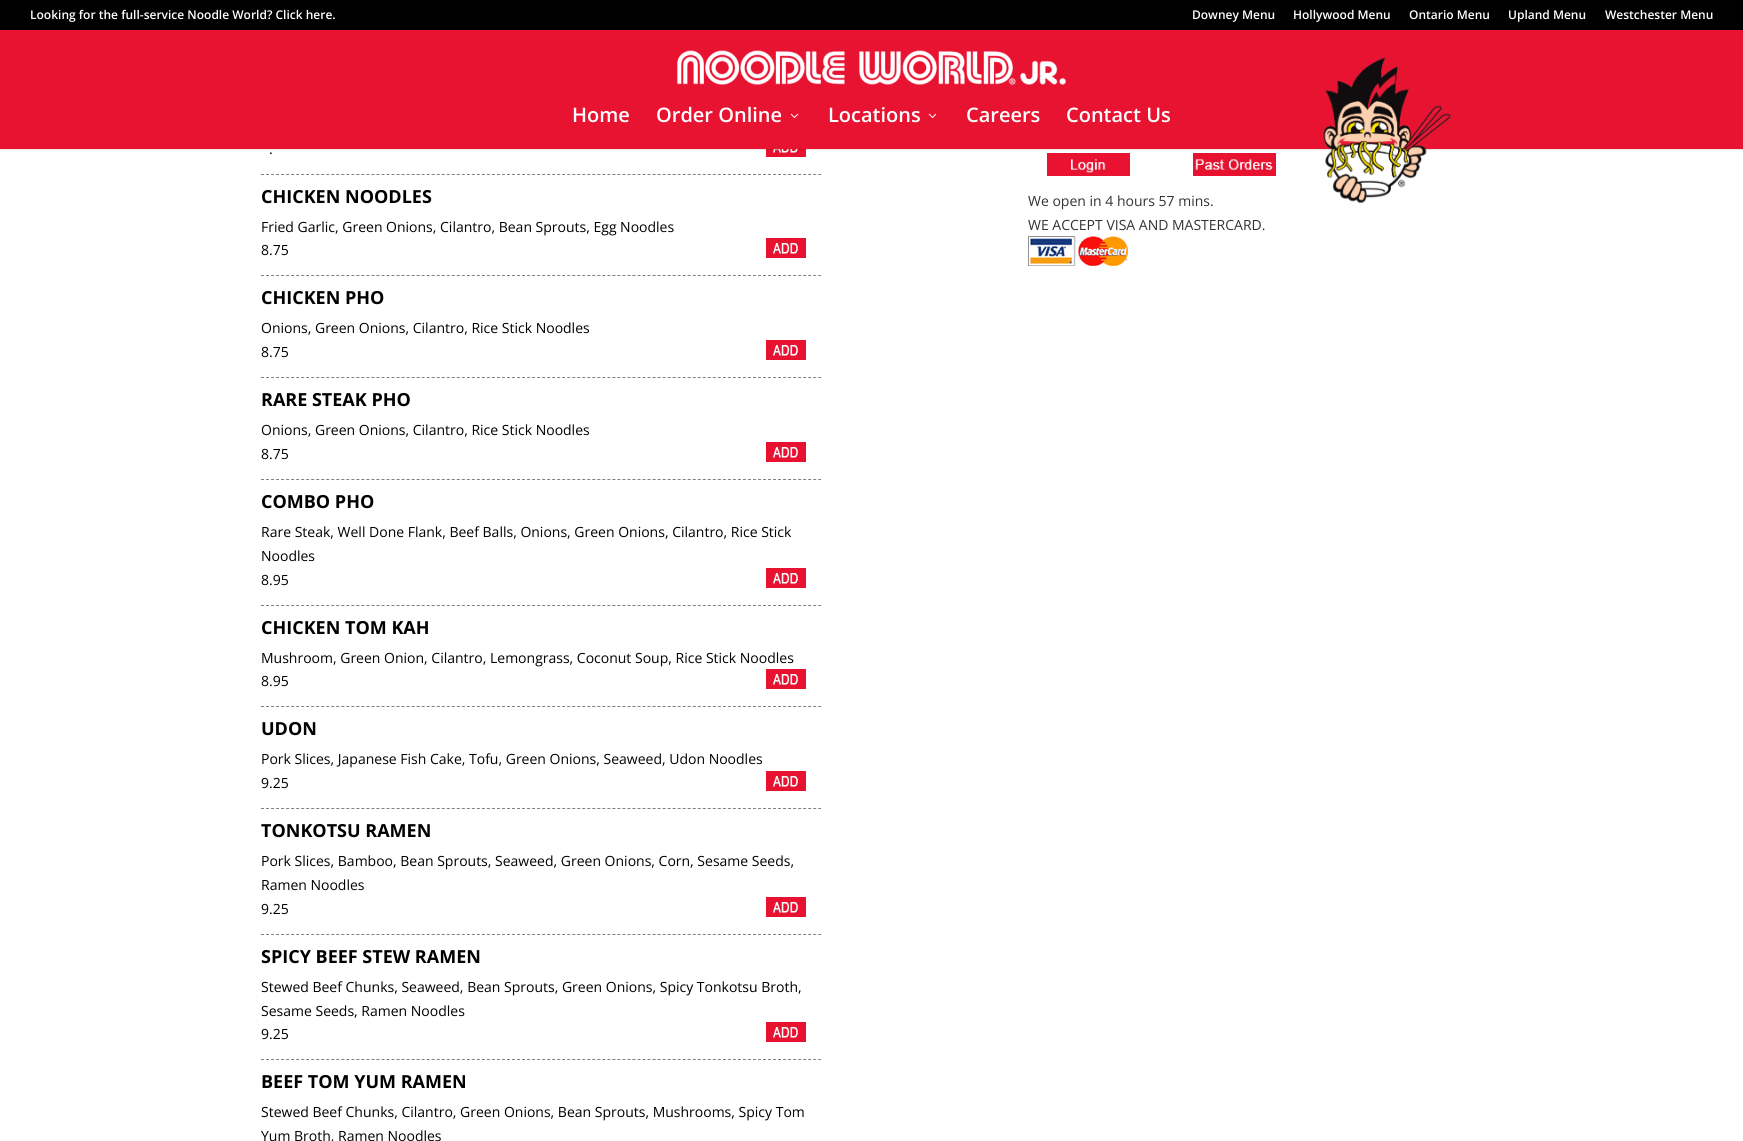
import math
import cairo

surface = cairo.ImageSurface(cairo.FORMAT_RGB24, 1743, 1141)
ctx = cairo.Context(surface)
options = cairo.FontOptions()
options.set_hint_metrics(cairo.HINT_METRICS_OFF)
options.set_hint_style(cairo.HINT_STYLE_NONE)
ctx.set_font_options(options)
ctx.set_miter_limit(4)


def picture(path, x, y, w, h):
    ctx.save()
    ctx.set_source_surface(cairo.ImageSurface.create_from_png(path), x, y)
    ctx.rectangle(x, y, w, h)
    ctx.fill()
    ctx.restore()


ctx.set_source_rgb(1, 1, 1)
ctx.paint()
ctx.set_source_rgb(0, 0, 0)
ctx.rectangle(0, 0, 1743, 30)
ctx.fill()
ctx.select_font_face("Open Sans SemiBold")
ctx.set_font_size(12)
ctx.set_source_rgb(1, 1, 1)
ctx.move_to(30, 19)
ctx.show_text("Looking for the full-service Noodle World? Click here.")
ctx.move_to(1192, 19)
ctx.show_text("Downey Menu")
ctx.move_to(1293, 19)
ctx.show_text("Hollywood Menu")
ctx.move_to(1409, 19)
ctx.show_text("Ontario Menu")
ctx.move_to(1508, 19)
ctx.show_text("Upland Menu")
ctx.move_to(1605, 19)
ctx.show_text("Westchester Menu")
picture("img4.png", 766, 149, 40, 8)
ctx.set_source_rgba(0, 0, 0, 0.1)
ctx.rectangle(0, 149, 1743, 1)
ctx.fill()
ctx.set_source_rgb(0.91, 0.071, 0.192)
ctx.rectangle(0, 30, 1743, 119)
ctx.fill()
picture("img1.png", 677, 50, 389, 35)
picture("img2.png", 1323, 57, 128, 147)
ctx.set_font_size(20)
ctx.set_source_rgb(1, 1, 1)
ctx.move_to(572, 122)
ctx.show_text("Home")
ctx.move_to(656, 122)
ctx.show_text("Order Online")
picture("img3.png", 790, 113, 9, 5)
ctx.move_to(828, 122)
ctx.show_text("Locations")
picture("img3.png", 928, 113, 9, 5)
ctx.move_to(966, 122)
ctx.show_text("Careers")
ctx.move_to(1066, 122)
ctx.show_text("Contact Us")
ctx.select_font_face("Open Sans")
ctx.set_font_size(14)
ctx.set_source_rgb(0, 0, 0)
ctx.move_to(269, 154)
ctx.show_text(".")
ctx.new_path()
ctx.move_to(261, 174.5)
ctx.line_to(821, 174.5)
ctx.set_source_rgb(0.502, 0.502, 0.502)
ctx.set_line_width(1)
ctx.set_dash([3, 2.02])
ctx.stroke()
ctx.select_font_face("Open Sans", cairo.FONT_SLANT_NORMAL, cairo.FONT_WEIGHT_BOLD)
ctx.set_font_size(18)
ctx.set_source_rgb(0, 0, 0)
ctx.move_to(261, 203)
ctx.show_text("CHICKEN NOODLES")
ctx.select_font_face("Open Sans")
ctx.set_font_size(14)
ctx.move_to(261, 232)
ctx.show_text("Fried Garlic, Green Onions, Cilantro, Bean Sprouts, Egg Noodles")
ctx.move_to(261, 255)
ctx.show_text("8.75")
picture("img5.png", 766, 238, 40, 20)
ctx.new_path()
ctx.move_to(261, 275.5)
ctx.line_to(821, 275.5)
ctx.set_source_rgb(0.502, 0.502, 0.502)
ctx.stroke()
ctx.select_font_face("Open Sans", cairo.FONT_SLANT_NORMAL, cairo.FONT_WEIGHT_BOLD)
ctx.set_font_size(18)
ctx.set_source_rgb(0, 0, 0)
ctx.move_to(261, 304)
ctx.show_text("CHICKEN PHO")
ctx.select_font_face("Open Sans")
ctx.set_font_size(14)
ctx.move_to(261, 333)
ctx.show_text("Onions, Green Onions, Cilantro, Rice Stick Noodles")
ctx.move_to(261, 357)
ctx.show_text("8.75")
picture("img5.png", 766, 340, 40, 20)
ctx.new_path()
ctx.move_to(261, 377.5)
ctx.line_to(821, 377.5)
ctx.set_source_rgb(0.502, 0.502, 0.502)
ctx.stroke()
ctx.select_font_face("Open Sans", cairo.FONT_SLANT_NORMAL, cairo.FONT_WEIGHT_BOLD)
ctx.set_font_size(18)
ctx.set_source_rgb(0, 0, 0)
ctx.move_to(261, 406)
ctx.show_text("RARE STEAK PHO")
ctx.select_font_face("Open Sans")
ctx.set_font_size(14)
ctx.move_to(261, 435)
ctx.show_text("Onions, Green Onions, Cilantro, Rice Stick Noodles")
ctx.move_to(261, 459)
ctx.show_text("8.75")
picture("img5.png", 766, 442, 40, 20)
ctx.new_path()
ctx.move_to(261, 479.5)
ctx.line_to(821, 479.5)
ctx.set_source_rgb(0.502, 0.502, 0.502)
ctx.stroke()
ctx.select_font_face("Open Sans", cairo.FONT_SLANT_NORMAL, cairo.FONT_WEIGHT_BOLD)
ctx.set_font_size(18)
ctx.set_source_rgb(0, 0, 0)
ctx.move_to(261, 508)
ctx.show_text("COMBO PHO")
ctx.select_font_face("Open Sans")
ctx.set_font_size(14)
ctx.move_to(261, 537)
ctx.show_text("Rare Steak, Well Done Flank, Beef Balls, Onions, Green Onions, Cilantro, Rice Stick")
ctx.move_to(261, 561)
ctx.show_text("Noodles")
ctx.move_to(261, 585)
ctx.show_text("8.95")
picture("img5.png", 766, 568, 40, 20)
ctx.new_path()
ctx.move_to(261, 605.5)
ctx.line_to(821, 605.5)
ctx.set_source_rgb(0.502, 0.502, 0.502)
ctx.stroke()
ctx.select_font_face("Open Sans", cairo.FONT_SLANT_NORMAL, cairo.FONT_WEIGHT_BOLD)
ctx.set_font_size(18)
ctx.set_source_rgb(0, 0, 0)
ctx.move_to(261, 634)
ctx.show_text("CHICKEN TOM KAH")
ctx.select_font_face("Open Sans")
ctx.set_font_size(14)
ctx.move_to(261, 663)
ctx.show_text("Mushroom, Green Onion, Cilantro, Lemongrass, Coconut Soup, Rice Stick Noodles")
ctx.move_to(261, 686)
ctx.show_text("8.95")
picture("img5.png", 766, 669, 40, 20)
ctx.new_path()
ctx.move_to(261, 706.5)
ctx.line_to(821, 706.5)
ctx.set_source_rgb(0.502, 0.502, 0.502)
ctx.stroke()
ctx.select_font_face("Open Sans", cairo.FONT_SLANT_NORMAL, cairo.FONT_WEIGHT_BOLD)
ctx.set_font_size(18)
ctx.set_source_rgb(0, 0, 0)
ctx.move_to(261, 735)
ctx.show_text("UDON")
ctx.select_font_face("Open Sans")
ctx.set_font_size(14)
ctx.move_to(261, 764)
ctx.show_text("Pork Slices, Japanese Fish Cake, Tofu, Green Onions, Seaweed, Udon Noodles")
ctx.move_to(261, 788)
ctx.show_text("9.25")
picture("img5.png", 766, 771, 40, 20)
ctx.new_path()
ctx.move_to(261, 808.5)
ctx.line_to(821, 808.5)
ctx.set_source_rgb(0.502, 0.502, 0.502)
ctx.stroke()
ctx.select_font_face("Open Sans", cairo.FONT_SLANT_NORMAL, cairo.FONT_WEIGHT_BOLD)
ctx.set_font_size(18)
ctx.set_source_rgb(0, 0, 0)
ctx.move_to(261, 837)
ctx.show_text("TONKOTSU RAMEN")
ctx.select_font_face("Open Sans")
ctx.set_font_size(14)
ctx.move_to(261, 866)
ctx.show_text("Pork Slices, Bamboo, Bean Sprouts, Seaweed, Green Onions, Corn, Sesame Seeds,")
ctx.move_to(261, 890)
ctx.show_text("Ramen Noodles")
ctx.move_to(261, 914)
ctx.show_text("9.25")
picture("img5.png", 766, 897, 40, 20)
ctx.new_path()
ctx.move_to(261, 934.5)
ctx.line_to(821, 934.5)
ctx.set_source_rgb(0.502, 0.502, 0.502)
ctx.stroke()
ctx.select_font_face("Open Sans", cairo.FONT_SLANT_NORMAL, cairo.FONT_WEIGHT_BOLD)
ctx.set_font_size(18)
ctx.set_source_rgb(0, 0, 0)
ctx.move_to(261, 963)
ctx.show_text("SPICY BEEF STEW RAMEN")
ctx.select_font_face("Open Sans")
ctx.set_font_size(14)
ctx.move_to(261, 992)
ctx.show_text("Stewed Beef Chunks, Seaweed, Bean Sprouts, Green Onions, Spicy Tonkotsu Broth,")
ctx.move_to(261, 1016)
ctx.show_text("Sesame Seeds, Ramen Noodles")
ctx.move_to(261, 1039)
ctx.show_text("9.25")
picture("img5.png", 766, 1022, 40, 20)
ctx.new_path()
ctx.move_to(261, 1059.5)
ctx.line_to(821, 1059.5)
ctx.set_source_rgb(0.502, 0.502, 0.502)
ctx.stroke()
ctx.select_font_face("Open Sans", cairo.FONT_SLANT_NORMAL, cairo.FONT_WEIGHT_BOLD)
ctx.set_font_size(18)
ctx.set_source_rgb(0, 0, 0)
ctx.move_to(261, 1088)
ctx.show_text("BEEF TOM YUM RAMEN")
ctx.select_font_face("Open Sans")
ctx.set_font_size(14)
ctx.move_to(261, 1117)
ctx.show_text("Stewed Beef Chunks, Cilantro, Green Onions, Bean Sprouts, Mushrooms, Spicy Tom")
ctx.move_to(261, 1141)
ctx.show_text("Yum Broth, Ramen Noodles")
picture("img6.png", 1047, 153, 83, 23)
picture("img7.png", 1193, 153, 83, 23)
ctx.set_source_rgb(0.2, 0.2, 0.2)
ctx.move_to(1028, 206)
ctx.show_text("We open in 4 hours 57 mins.")
ctx.move_to(1028, 230)
ctx.show_text("WE ACCEPT VISA AND MASTERCARD.")
picture("img8.png", 1028, 236, 100, 30)
surface.write_to_png("page.png")
